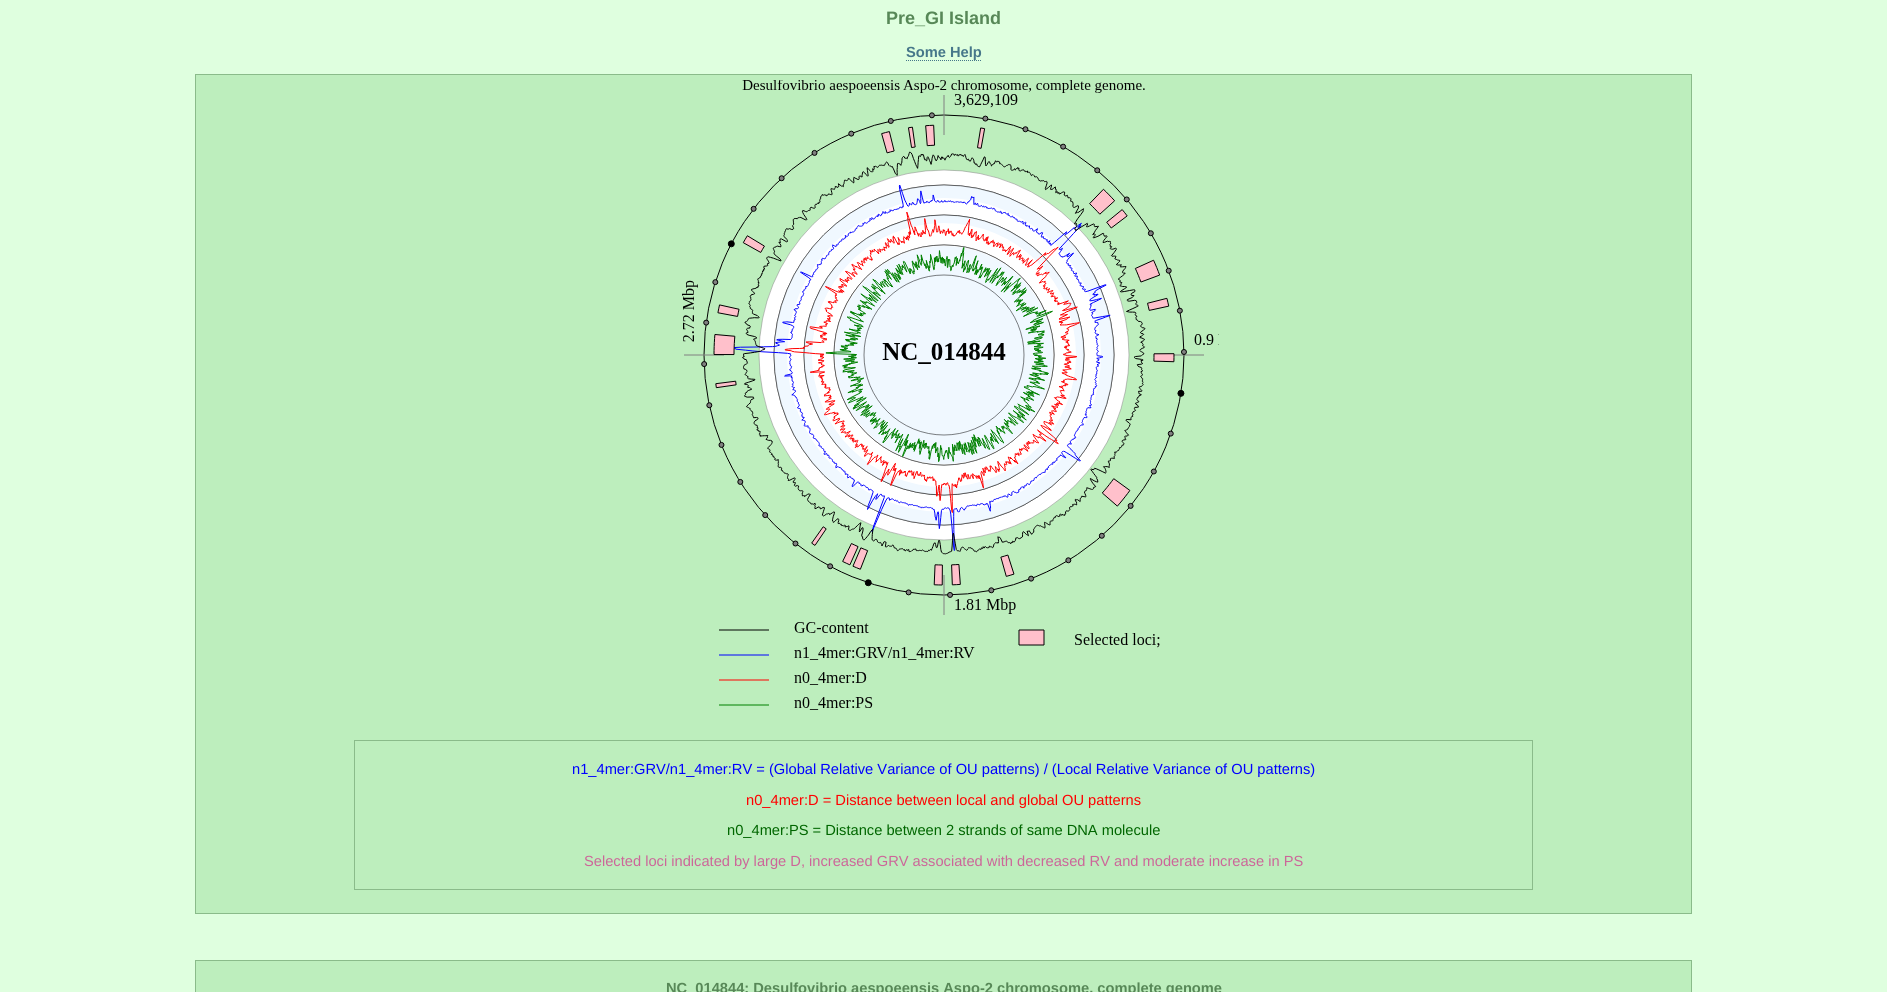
import math
import cairo

surface = cairo.ImageSurface(cairo.FORMAT_RGB24, 1887, 992)
ctx = cairo.Context(surface)
options = cairo.FontOptions()
options.set_hint_metrics(cairo.HINT_METRICS_OFF)
options.set_hint_style(cairo.HINT_STYLE_NONE)
ctx.set_font_options(options)
ctx.set_miter_limit(4)


def picture(path, x, y, w, h):
    ctx.save()
    ctx.set_source_surface(cairo.ImageSurface.create_from_png(path), x, y)
    ctx.rectangle(x, y, w, h)
    ctx.fill()
    ctx.restore()


ctx.set_source_rgb(0.875, 1, 0.875)
ctx.paint()
ctx.select_font_face("Liberation Sans", cairo.FONT_SLANT_NORMAL, cairo.FONT_WEIGHT_BOLD)
ctx.set_font_size(18)
ctx.set_source_rgb(0.341, 0.533, 0.341)
ctx.move_to(886, 24)
ctx.show_text("Pre_GI Island")
ctx.new_path()
ctx.move_to(906, 60.5)
ctx.line_to(981, 60.5)
ctx.set_source_rgb(0.275, 0.467, 0.541)
ctx.set_line_width(1)
ctx.set_dash([1, 1])
ctx.stroke()
ctx.set_font_size(14.67)
ctx.move_to(906, 57)
ctx.show_text("Some Help")
ctx.set_source_rgb(0.741, 0.933, 0.741)
ctx.rectangle(195.5, 74.5, 1496, 839)
ctx.fill_preserve()
ctx.set_source_rgb(0.541, 0.733, 0.541)
ctx.set_dash([])
ctx.stroke()
picture("img1.png", 682, 80, 537, 630)
ctx.rectangle(354.5, 740.5, 1178, 149)
ctx.stroke()
ctx.select_font_face("Liberation Sans")
ctx.set_source_rgb(0, 0, 1)
ctx.move_to(572, 774)
ctx.show_text("n1_4mer:GRV/n1_4mer:RV = (Global Relative Variance of OU patterns) / (Local Relative Variance of OU patterns)")
ctx.set_source_rgb(1, 0, 0)
ctx.move_to(746, 805)
ctx.show_text("n0_4mer:D = Distance between local and global OU patterns")
ctx.set_source_rgb(0, 0.4, 0)
ctx.move_to(727, 835)
ctx.show_text("n0_4mer:PS = Distance between 2 strands of same DNA molecule")
ctx.set_source_rgb(0.8, 0.4, 0.6)
ctx.move_to(584, 866)
ctx.show_text("Selected loci indicated by large D, increased GRV associated with decreased RV and moderate increase in PS")
ctx.set_source_rgb(0.741, 0.933, 0.741)
ctx.rectangle(195.5, 960.5, 1496, 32)
ctx.fill_preserve()
ctx.set_source_rgb(0.541, 0.733, 0.541)
ctx.stroke()
ctx.select_font_face("Liberation Sans", cairo.FONT_SLANT_NORMAL, cairo.FONT_WEIGHT_BOLD)
ctx.set_source_rgb(0.341, 0.533, 0.341)
ctx.move_to(666, 993)
ctx.show_text("NC_014844: Desulfovibrio aespoeensis Aspo-2 chromosome, complete genome")
surface.write_to_png("page.png")
